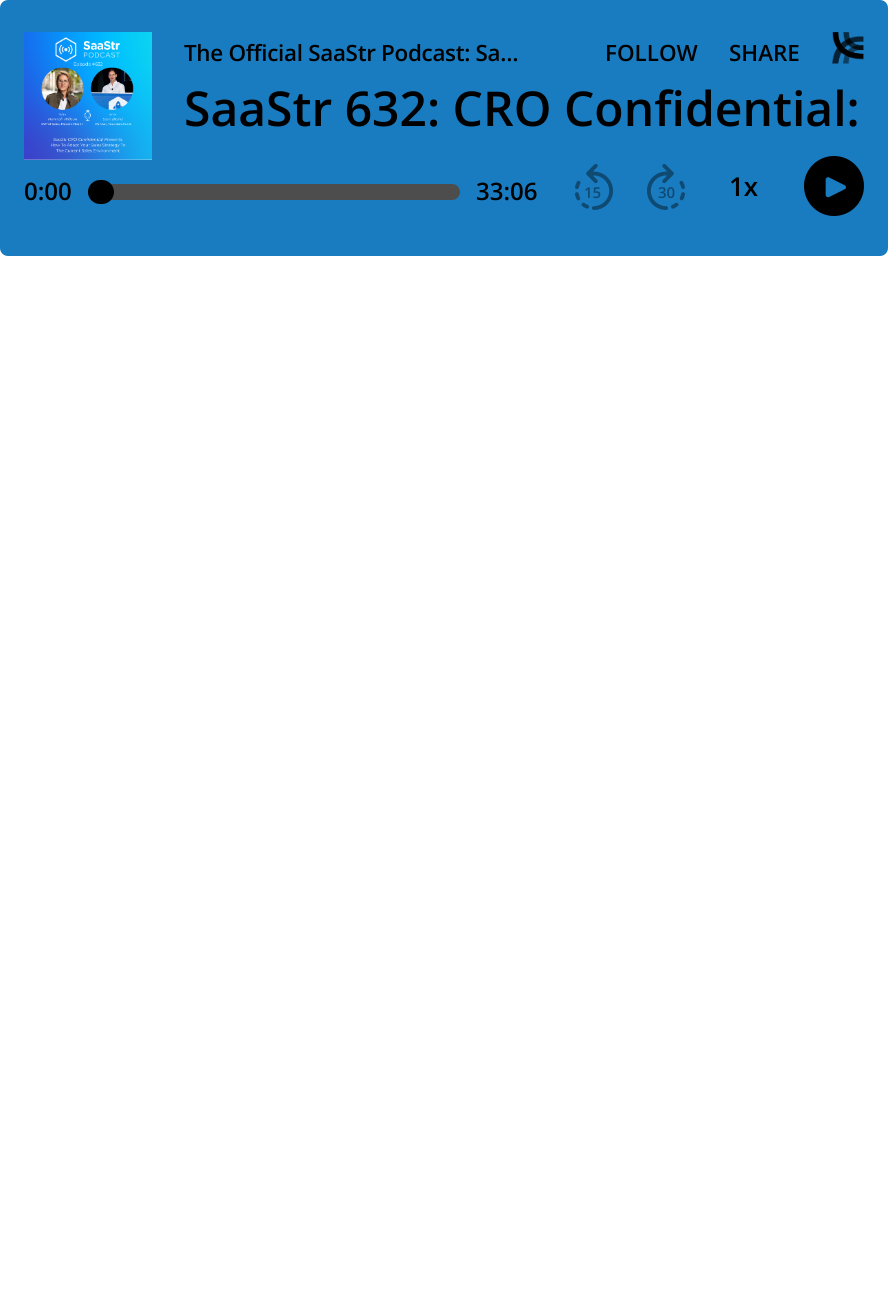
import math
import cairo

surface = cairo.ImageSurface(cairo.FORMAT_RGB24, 888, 1301)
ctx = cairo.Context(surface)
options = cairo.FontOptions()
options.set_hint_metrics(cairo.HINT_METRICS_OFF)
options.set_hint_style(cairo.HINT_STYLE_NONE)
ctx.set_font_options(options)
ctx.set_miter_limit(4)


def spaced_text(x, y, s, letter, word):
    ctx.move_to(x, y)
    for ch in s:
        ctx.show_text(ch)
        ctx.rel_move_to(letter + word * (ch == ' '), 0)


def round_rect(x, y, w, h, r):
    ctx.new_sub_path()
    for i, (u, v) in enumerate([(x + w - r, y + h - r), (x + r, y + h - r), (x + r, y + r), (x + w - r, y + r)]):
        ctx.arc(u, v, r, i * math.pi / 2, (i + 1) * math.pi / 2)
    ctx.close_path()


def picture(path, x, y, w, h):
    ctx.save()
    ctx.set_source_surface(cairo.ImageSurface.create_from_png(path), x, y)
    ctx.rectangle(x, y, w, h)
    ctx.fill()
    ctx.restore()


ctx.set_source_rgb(1, 1, 1)
ctx.paint()
ctx.set_source_rgb(0.098, 0.482, 0.753)
round_rect(0, 0, 888, 256, 8)
ctx.fill()
picture("img1.png", 24, 32, 128, 128)
ctx.select_font_face("Open Sans SemiBold")
ctx.set_font_size(22.4)
ctx.set_source_rgb(0, 0, 0)
spaced_text(184, 61, "The Official SaaStr Podcast: Sa…", -0.3, 0)
ctx.move_to(605, 61)
ctx.show_text("FOLLOW")
ctx.move_to(729, 61)
ctx.show_text("SHARE")
picture("img2.png", 832, 32, 32, 32)
ctx.set_font_size(48)
ctx.move_to(184, 126)
ctx.show_text("SaaStr 632: CRO Confidential:")
ctx.set_font_size(24)
ctx.move_to(24, 200)
ctx.show_text("0:00")
ctx.set_source_rgb(0.302, 0.302, 0.302)
round_rect(88, 184, 372, 16, 8)
ctx.fill()
ctx.set_source_rgb(0, 0, 0)
round_rect(88, 180, 26, 24, 12)
ctx.fill()
ctx.move_to(476, 200)
ctx.show_text("33:06")
picture("img3.png", 575, 164, 38, 46)
ctx.set_font_size(15)
ctx.set_source_rgb(0.059, 0.29, 0.451)
ctx.move_to(584, 198)
ctx.show_text("15")
picture("img4.png", 647, 164, 38, 46)
ctx.move_to(658, 198)
ctx.show_text("30")
ctx.set_font_size(26)
ctx.set_source_rgb(0, 0, 0)
ctx.move_to(729, 196)
ctx.show_text("1x")
picture("img5.png", 804, 156, 60, 60)
surface.write_to_png("page.png")
